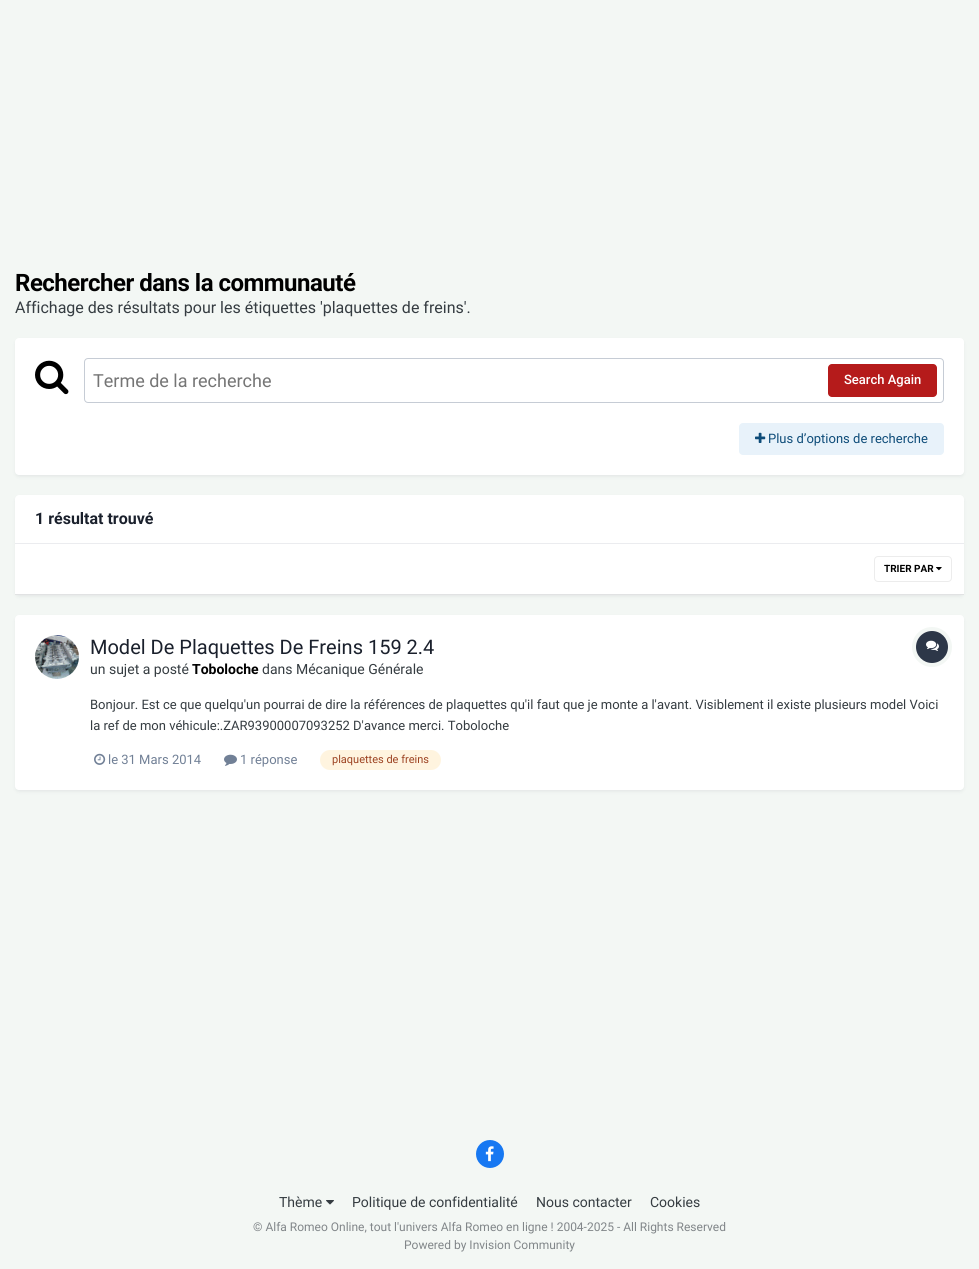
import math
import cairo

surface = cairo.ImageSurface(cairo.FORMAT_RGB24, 979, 1269)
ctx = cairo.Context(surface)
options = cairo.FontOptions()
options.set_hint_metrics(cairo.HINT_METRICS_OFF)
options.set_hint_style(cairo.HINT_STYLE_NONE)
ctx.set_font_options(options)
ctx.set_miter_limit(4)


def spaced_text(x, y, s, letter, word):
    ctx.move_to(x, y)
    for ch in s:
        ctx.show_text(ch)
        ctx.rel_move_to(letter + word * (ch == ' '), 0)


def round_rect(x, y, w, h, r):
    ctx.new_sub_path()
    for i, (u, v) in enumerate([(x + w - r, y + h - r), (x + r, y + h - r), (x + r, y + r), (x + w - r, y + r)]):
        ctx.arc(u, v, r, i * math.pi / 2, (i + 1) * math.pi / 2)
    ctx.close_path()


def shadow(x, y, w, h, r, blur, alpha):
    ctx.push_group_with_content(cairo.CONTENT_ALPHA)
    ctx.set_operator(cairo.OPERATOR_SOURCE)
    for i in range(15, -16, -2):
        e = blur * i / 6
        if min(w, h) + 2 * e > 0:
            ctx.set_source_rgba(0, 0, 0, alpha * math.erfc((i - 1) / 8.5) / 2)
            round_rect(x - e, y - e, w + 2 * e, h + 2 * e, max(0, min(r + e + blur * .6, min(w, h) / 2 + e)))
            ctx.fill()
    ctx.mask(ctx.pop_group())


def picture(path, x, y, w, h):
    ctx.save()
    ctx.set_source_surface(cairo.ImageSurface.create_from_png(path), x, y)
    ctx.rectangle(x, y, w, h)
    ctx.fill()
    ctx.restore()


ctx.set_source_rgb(0.953, 0.965, 0.957)
ctx.paint()
ctx.select_font_face("Roboto", cairo.FONT_SLANT_NORMAL, cairo.FONT_WEIGHT_BOLD)
ctx.set_font_size(24)
ctx.set_source_rgb(0, 0, 0)
spaced_text(15, 291, "Rechercher dans la communauté", -0.5, 0)
ctx.select_font_face("Roboto")
ctx.set_font_size(16)
ctx.set_source_rgb(0.208, 0.235, 0.255)
ctx.move_to(15, 313)
ctx.show_text("Affichage des résultats pour les étiquettes 'plaquettes de freins'.")
ctx.set_source_rgb(0.176, 0.216, 0.282)
shadow(16, 341, 947, 135, 3, 2, 0.1)
ctx.set_source_rgb(1, 1, 1)
round_rect(15, 338, 949, 137, 4)
ctx.fill()
picture("img1.png", 35, 360, 34, 35)
round_rect(84.5, 358.5, 859, 44, 3.5)
ctx.set_source_rgb(0.776, 0.8, 0.835)
ctx.set_line_width(1)
ctx.stroke()
ctx.set_font_size(18)
ctx.set_source_rgb(0.459, 0.459, 0.459)
ctx.move_to(93, 387)
ctx.show_text("Terme de la recherche")
ctx.set_source_rgb(0.71, 0.106, 0.106)
round_rect(828, 364, 109, 33, 4)
ctx.fill()
ctx.select_font_face("Roboto Medium")
ctx.set_font_size(13)
ctx.set_source_rgb(1, 1, 1)
ctx.move_to(844, 384)
ctx.show_text("Search Again")
ctx.set_source_rgb(0.91, 0.949, 0.98)
round_rect(739, 423, 205, 32, 4)
ctx.fill()
picture("img2.png", 755, 432, 11, 11)
ctx.select_font_face("Roboto")
ctx.set_source_rgb(0.055, 0.298, 0.475)
ctx.move_to(768, 443)
ctx.show_text("Plus d’options de recherche")
ctx.set_source_rgb(0.176, 0.216, 0.282)
shadow(16, 498, 947, 98, 3, 2, 0.1)
ctx.set_source_rgb(1, 1, 1)
ctx.new_path()
ctx.move_to(19, 495)
ctx.line_to(960, 495)
ctx.curve_to(962, 495, 964, 497, 964, 499)
ctx.line_to(964, 544)
ctx.line_to(15, 544)
ctx.line_to(15, 499)
ctx.curve_to(15, 497, 17, 495, 19, 495)
ctx.close_path()
ctx.fill()
ctx.set_source_rgb(0.918, 0.925, 0.937)
ctx.rectangle(15, 543, 949, 1)
ctx.fill()
ctx.select_font_face("Roboto", cairo.FONT_SLANT_NORMAL, cairo.FONT_WEIGHT_BOLD)
ctx.set_font_size(16)
ctx.set_source_rgb(0.102, 0.125, 0.173)
ctx.move_to(35, 524)
ctx.show_text("1 résultat trouvé")
ctx.set_source_rgb(1, 1, 1)
ctx.rectangle(15, 544, 949, 50)
ctx.fill()
ctx.set_source_rgb(0.882, 0.886, 0.89)
ctx.rectangle(15, 594, 949, 1)
ctx.fill()
picture("img3.png", 936, 567, 6, 4)
round_rect(874.5, 556.5, 77, 25, 3.5)
ctx.set_source_rgb(0.922, 0.925, 0.925)
ctx.stroke()
ctx.set_font_size(10)
ctx.set_source_rgb(0, 0, 0)
ctx.move_to(884, 572)
ctx.show_text("TRIER PAR")
ctx.set_source_rgb(0.176, 0.216, 0.282)
shadow(16, 618, 947, 173, 3, 2, 0.1)
ctx.set_source_rgb(1, 1, 1)
round_rect(15, 615, 949, 175, 4)
ctx.fill()
picture("img4.png", 35, 635, 44, 44)
ctx.select_font_face("Roboto")
ctx.set_font_size(20)
ctx.set_source_rgb(0.102, 0.125, 0.173)
ctx.move_to(90, 654)
ctx.show_text("Model De Plaquettes De Freins 159 2.4")
ctx.set_font_size(14)
ctx.set_source_rgb(0.208, 0.235, 0.255)
ctx.move_to(90, 674)
ctx.show_text("un sujet a posté")
ctx.select_font_face("Roboto", cairo.FONT_SLANT_NORMAL, cairo.FONT_WEIGHT_BOLD)
ctx.set_source_rgb(0, 0, 0)
ctx.move_to(192, 674)
ctx.show_text("Toboloche")
ctx.select_font_face("Roboto")
ctx.set_source_rgb(0.208, 0.235, 0.255)
ctx.move_to(262, 674)
ctx.show_text("dans Mécanique Générale")
ctx.new_path()
ctx.arc(932, 647, 18, 0, 2 * math.pi)
ctx.set_source_rgb(0.953, 0.965, 0.957)
ctx.set_line_width(4)
ctx.stroke()
ctx.set_source_rgb(0.176, 0.216, 0.282)
ctx.arc(932, 647, 16, 0, 2 * math.pi)
ctx.fill()
picture("img5.png", 926, 640, 13, 11)
ctx.set_font_size(13)
ctx.set_source_rgb(0.208, 0.235, 0.255)
ctx.move_to(90, 709)
ctx.show_text("Bonjour. Est ce que quelqu'un pourrai de dire la références de plaquettes qu'il faut que je monte a l'avant. Visiblement il existe plusieurs model Voici")
ctx.move_to(90, 730)
ctx.show_text("la ref de mon véhicule:.ZAR93900007093252 D'avance merci. Toboloche")
picture("img6.png", 94, 753, 12, 12)
ctx.set_source_rgb(0.443, 0.502, 0.588)
ctx.move_to(108, 764)
ctx.show_text("le 31 Mars 2014")
picture("img7.png", 224, 754, 13, 12)
ctx.move_to(240, 764)
ctx.show_text("1 réponse")
ctx.set_source_rgb(1, 0.957, 0.875)
round_rect(320, 750, 121, 20, 10)
ctx.fill()
ctx.set_font_size(11)
ctx.set_source_rgb(0.612, 0.259, 0.129)
ctx.move_to(332, 763)
ctx.show_text("plaquettes de freins")
ctx.set_source_rgb(0.09, 0.471, 0.949)
ctx.new_path()
ctx.arc(490, 1154, 14, 0, 2 * math.pi)
ctx.fill()
picture("img8.png", 485, 1146, 9, 16)
ctx.set_font_size(14)
ctx.set_source_rgb(0.208, 0.235, 0.255)
ctx.move_to(279, 1207)
ctx.show_text("Thème")
picture("img9.png", 326, 1200, 8, 5)
ctx.move_to(352, 1207)
ctx.show_text("Politique de confidentialité")
ctx.move_to(536, 1207)
ctx.show_text("Nous contacter")
ctx.move_to(650, 1207)
ctx.show_text("Cookies")
ctx.set_font_size(12)
ctx.set_source_rgb(0.506, 0.525, 0.537)
ctx.move_to(253, 1231)
ctx.show_text("© Alfa Romeo Online, tout l'univers Alfa Romeo en ligne ! 2004-2025 - All Rights Reserved")
ctx.move_to(404, 1249)
ctx.show_text("Powered by Invision Community")
surface.write_to_png("page.png")
